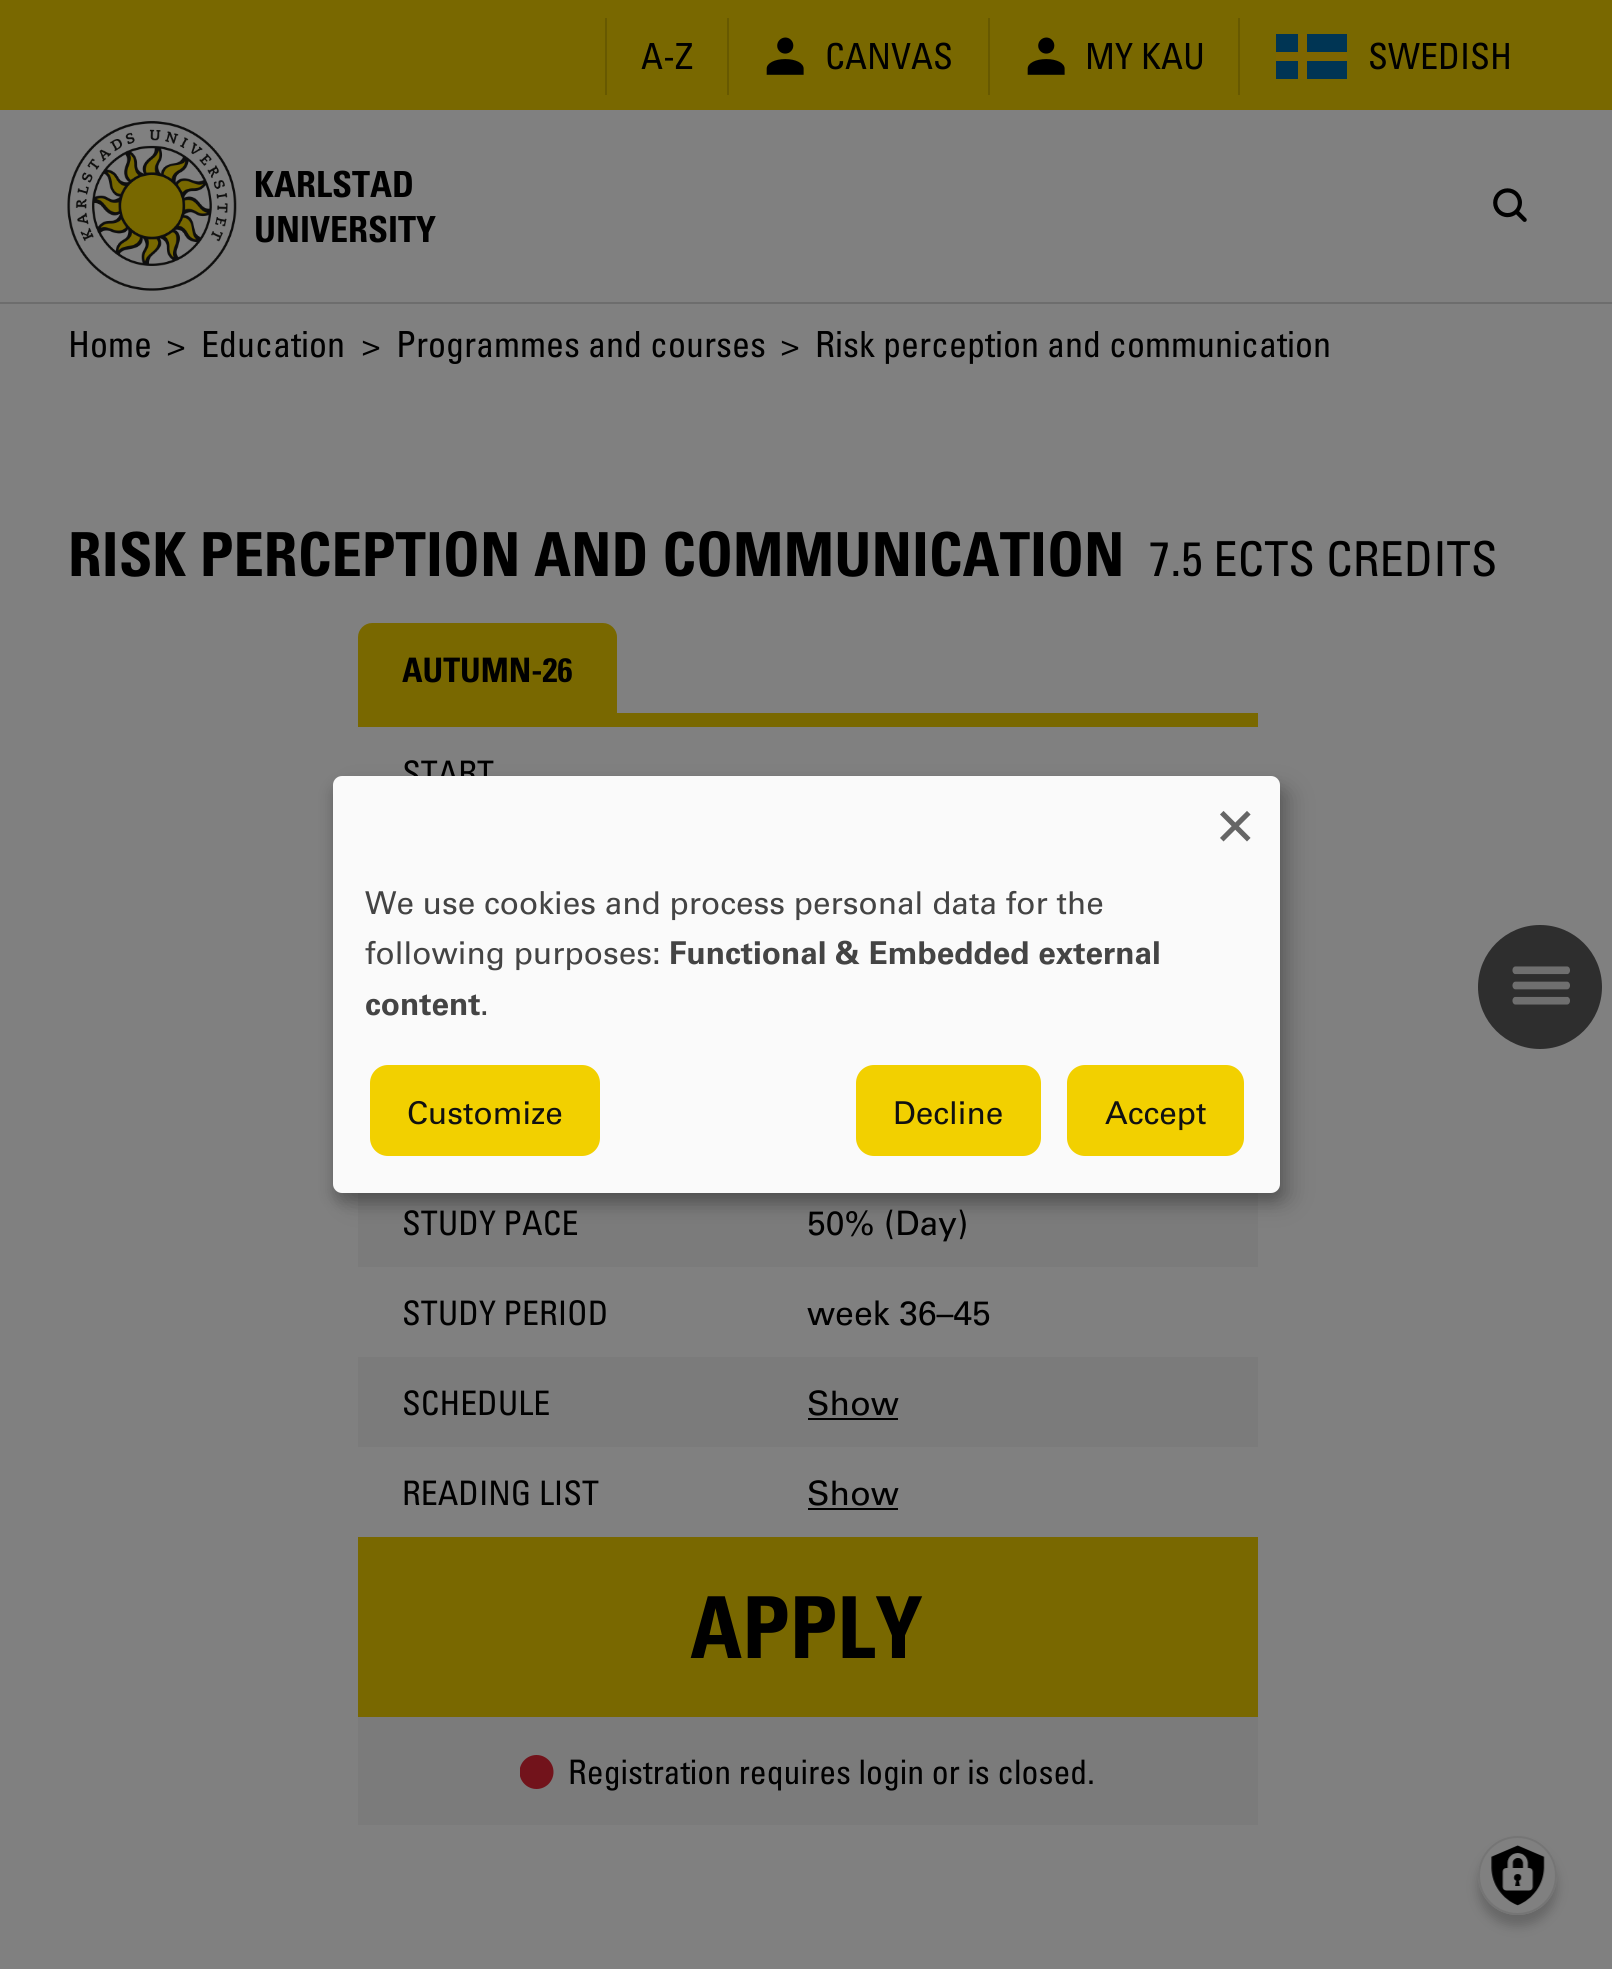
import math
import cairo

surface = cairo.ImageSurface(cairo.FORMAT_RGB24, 1612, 1969)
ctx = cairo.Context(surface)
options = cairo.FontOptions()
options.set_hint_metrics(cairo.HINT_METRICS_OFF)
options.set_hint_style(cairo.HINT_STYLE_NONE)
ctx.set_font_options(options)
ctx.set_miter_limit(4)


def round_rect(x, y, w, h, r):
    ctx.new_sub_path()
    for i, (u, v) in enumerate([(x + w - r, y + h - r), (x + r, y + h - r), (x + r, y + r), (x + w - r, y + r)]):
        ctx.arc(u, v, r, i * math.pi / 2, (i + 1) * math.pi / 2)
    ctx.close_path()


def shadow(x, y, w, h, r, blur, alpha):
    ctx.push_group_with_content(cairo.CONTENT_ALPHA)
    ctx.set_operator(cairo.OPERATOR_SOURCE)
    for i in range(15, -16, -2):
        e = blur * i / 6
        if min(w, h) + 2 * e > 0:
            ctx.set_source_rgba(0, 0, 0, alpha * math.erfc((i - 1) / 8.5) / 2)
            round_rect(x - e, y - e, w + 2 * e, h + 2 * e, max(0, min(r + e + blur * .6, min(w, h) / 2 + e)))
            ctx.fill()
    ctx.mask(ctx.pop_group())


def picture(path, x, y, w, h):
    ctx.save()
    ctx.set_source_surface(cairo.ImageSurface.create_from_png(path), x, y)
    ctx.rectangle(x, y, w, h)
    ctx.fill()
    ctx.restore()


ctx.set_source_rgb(0.502, 0.502, 0.502)
ctx.paint()
ctx.set_source_rgb(0.475, 0.408, 0)
ctx.rectangle(0, 0, 1612, 110)
ctx.fill()
ctx.set_source_rgb(0.404, 0.349, 0)
ctx.rectangle(605, 18, 2, 77)
ctx.fill()
ctx.select_font_face("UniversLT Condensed")
ctx.set_font_size(36)
ctx.set_source_rgb(0, 0, 0)
ctx.move_to(641, 69)
ctx.show_text("A-Z")
ctx.set_source_rgb(0.404, 0.349, 0)
ctx.rectangle(727, 18, 2, 77)
ctx.fill()
picture("img1.png", 766, 37, 38, 38)
ctx.set_source_rgb(0, 0, 0)
ctx.move_to(825, 69)
ctx.show_text("CANVAS")
ctx.set_source_rgb(0.404, 0.349, 0)
ctx.rectangle(988, 18, 2, 77)
ctx.fill()
picture("img1.png", 1027, 37, 38, 38)
ctx.set_source_rgb(0, 0, 0)
ctx.move_to(1085, 69)
ctx.show_text("MY KAU")
ctx.set_source_rgb(0.404, 0.349, 0)
ctx.rectangle(1238, 18, 2, 77)
ctx.fill()
ctx.set_source_rgb(0, 0.208, 0.329)
ctx.rectangle(1276, 34, 71, 45)
ctx.fill()
ctx.set_source_rgb(0.498, 0.4, 0)
ctx.rectangle(1298, 34, 9, 45)
ctx.fill()
ctx.rectangle(1276, 52, 71, 9)
ctx.fill()
ctx.set_source_rgb(0, 0, 0)
ctx.move_to(1368, 69)
ctx.show_text("SWEDISH")
picture("img2.png", 67, 121, 170, 170)
ctx.select_font_face("UniversLT Condensed", cairo.FONT_SLANT_NORMAL, cairo.FONT_WEIGHT_BOLD)
ctx.move_to(254, 197)
ctx.show_text("KARLSTAD")
ctx.move_to(254, 242)
ctx.show_text("UNIVERSITY")
picture("img3.png", 1493, 188, 34, 34)
ctx.set_source_rgb(0.427, 0.427, 0.427)
ctx.rectangle(0, 302, 1612, 2)
ctx.fill()
ctx.select_font_face("UniversLT Condensed")
ctx.set_source_rgb(0, 0, 0)
ctx.move_to(68, 357)
ctx.show_text("Home")
ctx.move_to(167, 357)
ctx.show_text(">")
ctx.move_to(201, 357)
ctx.show_text("Education")
ctx.move_to(362, 357)
ctx.show_text(">")
ctx.move_to(396, 357)
ctx.show_text("Programmes and courses")
ctx.move_to(781, 357)
ctx.show_text(">")
ctx.move_to(815, 357)
ctx.show_text("Risk perception and communication")
ctx.select_font_face("UniversLT Condensed", cairo.FONT_SLANT_NORMAL, cairo.FONT_WEIGHT_BOLD)
ctx.set_font_size(60.75)
ctx.move_to(68, 576)
ctx.show_text("RISK PERCEPTION AND COMMUNICATION")
ctx.select_font_face("UniversLT Condensed")
ctx.set_font_size(48.25)
ctx.move_to(1149, 576)
ctx.show_text("7.5 ECTS CREDITS")
ctx.set_source_rgb(0.475, 0.408, 0)
ctx.rectangle(358, 713, 900, 14)
ctx.fill()
ctx.new_path()
ctx.move_to(372, 623)
ctx.line_to(603, 623)
ctx.curve_to(610.5, 623, 617, 629.5, 617, 637)
ctx.line_to(617, 713)
ctx.line_to(358, 713)
ctx.line_to(358, 637)
ctx.curve_to(358, 629.5, 364.5, 623, 372, 623)
ctx.close_path()
ctx.fill()
ctx.select_font_face("UniversLT Condensed", cairo.FONT_SLANT_NORMAL, cairo.FONT_WEIGHT_BOLD)
ctx.set_font_size(33.75)
ctx.set_source_rgb(0, 0, 0)
ctx.move_to(402, 682)
ctx.show_text("AUTUMN-26")
ctx.select_font_face("UniversLT Condensed")
ctx.move_to(402, 785)
ctx.show_text("START")
ctx.set_source_rgb(0.482, 0.482, 0.482)
ctx.rectangle(358, 1193, 900, 74)
ctx.fill()
ctx.set_source_rgb(0, 0, 0)
ctx.move_to(402, 1235)
ctx.show_text("STUDY PACE")
ctx.select_font_face("Univers")
ctx.move_to(807, 1235)
ctx.show_text("50% (Day)")
ctx.select_font_face("UniversLT Condensed")
ctx.move_to(402, 1325)
ctx.show_text("STUDY PERIOD")
ctx.select_font_face("Univers")
ctx.move_to(807, 1325)
ctx.show_text("week 36–45")
ctx.set_source_rgb(0.482, 0.482, 0.482)
ctx.rectangle(358, 1357, 900, 90)
ctx.fill()
ctx.select_font_face("UniversLT Condensed")
ctx.set_source_rgb(0, 0, 0)
ctx.move_to(402, 1415)
ctx.show_text("SCHEDULE")
ctx.select_font_face("Univers")
ctx.move_to(807, 1415)
ctx.show_text("Show")
ctx.rectangle(808, 1418, 90, 2)
ctx.fill()
ctx.select_font_face("UniversLT Condensed")
ctx.move_to(402, 1505)
ctx.show_text("READING LIST")
ctx.select_font_face("Univers")
ctx.move_to(807, 1505)
ctx.show_text("Show")
ctx.rectangle(808, 1508, 90, 2)
ctx.fill()
ctx.set_source_rgb(0.475, 0.408, 0)
ctx.rectangle(358, 1537, 900, 180)
ctx.fill()
ctx.select_font_face("UniversLT Condensed", cairo.FONT_SLANT_NORMAL, cairo.FONT_WEIGHT_BOLD)
ctx.set_font_size(85.5)
ctx.set_source_rgb(0, 0, 0)
ctx.move_to(690, 1658)
ctx.show_text("APPLY")
ctx.set_source_rgb(0.482, 0.482, 0.482)
ctx.rectangle(358, 1717, 900, 108)
ctx.fill()
ctx.save()
ctx.rectangle(520, 1755, 34, 34)
ctx.clip()
ctx.set_source_rgb(0.447, 0.075, 0.106)
ctx.arc(536.5, 1772, 17, 0, 2 * math.pi)
ctx.fill()
ctx.restore()
ctx.select_font_face("UniversLT Condensed")
ctx.set_font_size(33.75)
ctx.set_source_rgb(0, 0, 0)
ctx.move_to(568, 1784)
ctx.show_text("Registration requires login or is closed.")
ctx.set_source_rgb(0.18, 0.18, 0.18)
ctx.new_path()
ctx.arc(1540, 987, 62, 0, 2 * math.pi)
ctx.fill()
picture("img4.png", 1512, 966, 58, 39)
ctx.set_source_rgb(0, 0, 0)
shadow(344, 788, 948, 416, 9, 11, 0.19)
shadow(333, 785, 947, 417, 9, 7, 0.2)
ctx.set_source_rgb(0.98, 0.98, 0.98)
round_rect(333, 776, 947, 417, 9)
ctx.fill()
ctx.select_font_face("Univers")
ctx.set_font_size(63)
ctx.set_source_rgb(0.4, 0.4, 0.4)
ctx.move_to(1217, 842)
ctx.show_text("×")
ctx.set_font_size(31.5)
ctx.set_source_rgb(0.267, 0.267, 0.267)
ctx.move_to(365, 914)
ctx.show_text("We use cookies and process personal data for the")
ctx.move_to(365, 964)
ctx.show_text("following purposes:")
ctx.select_font_face("Univers", cairo.FONT_SLANT_NORMAL, cairo.FONT_WEIGHT_BOLD)
ctx.move_to(669, 964)
ctx.show_text("Functional & Embedded external")
ctx.move_to(365, 1015)
ctx.show_text("content")
ctx.select_font_face("Univers")
ctx.move_to(480, 1015)
ctx.show_text(".")
ctx.set_source_rgb(0.949, 0.816, 0)
round_rect(367.5, 1062.5, 235, 96, 20.5)
ctx.fill_preserve()
ctx.set_source_rgb(0.98, 0.98, 0.98)
ctx.set_line_width(5)
ctx.stroke()
ctx.set_source_rgb(0.067, 0.067, 0.067)
ctx.move_to(407, 1124)
ctx.show_text("Customize")
ctx.set_source_rgb(0.949, 0.816, 0)
round_rect(853.5, 1062.5, 190, 96, 20.5)
ctx.fill_preserve()
ctx.set_source_rgb(0.98, 0.98, 0.98)
ctx.stroke()
ctx.set_source_rgb(0.067, 0.067, 0.067)
ctx.move_to(893, 1124)
ctx.show_text("Decline")
ctx.set_source_rgb(0.949, 0.816, 0)
round_rect(1064.5, 1062.5, 182, 96, 20.5)
ctx.fill_preserve()
ctx.set_source_rgb(0.98, 0.98, 0.98)
ctx.stroke()
ctx.set_source_rgb(0.067, 0.067, 0.067)
ctx.move_to(1105, 1124)
ctx.show_text("Accept")
ctx.set_source_rgb(0, 0, 0)
shadow(1478, 1847, 79, 79, 39.5, 5.5, 0.2)
ctx.set_source_rgb(0.502, 0.502, 0.502)
ctx.arc(1517.5, 1875.5, 39.5, 0, 2 * math.pi)
ctx.fill()
picture("img5.png", 1491, 1845, 54, 61)
ctx.arc(1517.5, 1875.5, 38.5, 0, 2 * math.pi)
ctx.set_source_rgb(0.459, 0.459, 0.459)
ctx.set_line_width(2)
ctx.stroke()
surface.write_to_png("page.png")
